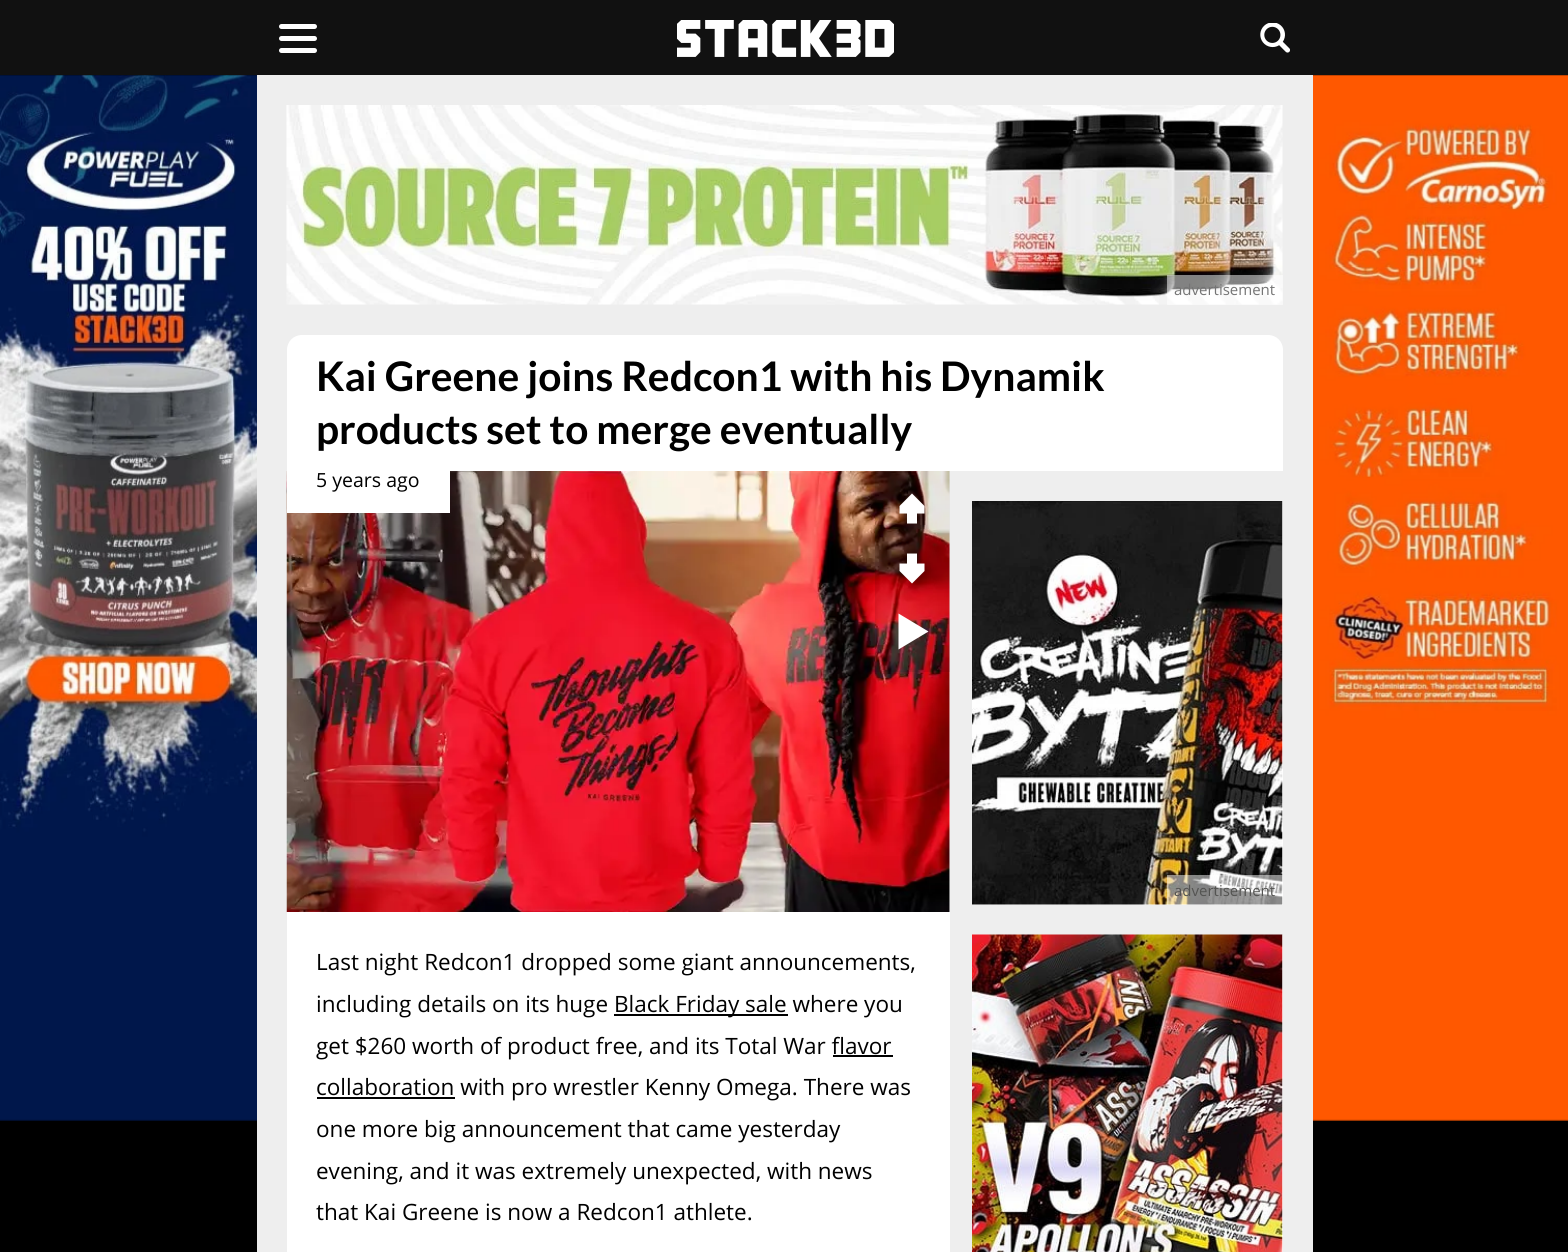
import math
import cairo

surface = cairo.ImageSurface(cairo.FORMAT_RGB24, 1568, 1252)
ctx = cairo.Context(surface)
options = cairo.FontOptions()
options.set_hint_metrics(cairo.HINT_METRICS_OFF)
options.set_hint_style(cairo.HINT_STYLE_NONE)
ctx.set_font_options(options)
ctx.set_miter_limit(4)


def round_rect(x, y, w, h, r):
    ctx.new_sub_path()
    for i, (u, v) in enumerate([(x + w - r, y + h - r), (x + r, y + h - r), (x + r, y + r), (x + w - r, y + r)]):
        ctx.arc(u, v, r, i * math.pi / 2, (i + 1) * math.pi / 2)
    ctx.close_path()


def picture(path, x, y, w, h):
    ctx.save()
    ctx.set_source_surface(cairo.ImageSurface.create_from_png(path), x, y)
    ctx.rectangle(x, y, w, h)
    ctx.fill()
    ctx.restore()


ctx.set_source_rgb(0, 0, 0)
ctx.paint()
picture("img1.png", 0, 75, 1568, 1046)
ctx.set_source_rgb(0.067, 0.067, 0.067)
ctx.rectangle(0, 0, 1568, 75)
ctx.fill()
ctx.set_source_rgb(1, 1, 1)
round_rect(279, 36, 38, 5, 2.5)
ctx.fill()
round_rect(279, 24, 38, 5, 2.5)
ctx.fill()
round_rect(279, 48, 38, 5, 2.5)
ctx.fill()
picture("img2.png", 677, 20, 217, 37)
picture("img3.png", 1260, 23, 30, 30)
ctx.set_source_rgb(0.933, 0.933, 0.933)
ctx.rectangle(257, 75, 1056, 1177)
ctx.fill()
picture("img4.png", 286, 105, 997, 200)
ctx.set_source_rgba(1, 1, 1, 0.5)
ctx.rectangle(1167, 275, 116, 30)
ctx.fill()
ctx.select_font_face("Open Sans")
ctx.set_font_size(15)
ctx.set_source_rgb(0.455, 0.455, 0.455)
ctx.move_to(1174, 295)
ctx.show_text("advertisement")
ctx.set_source_rgb(1, 1, 1)
ctx.new_path()
ctx.move_to(302, 335)
ctx.line_to(1268, 335)
ctx.curve_to(1276.5, 335, 1283, 341.5, 1283, 350)
ctx.line_to(1283, 471)
ctx.line_to(287, 471)
ctx.line_to(287, 350)
ctx.curve_to(287, 341.5, 293.5, 335, 302, 335)
ctx.close_path()
ctx.fill()
ctx.select_font_face("Lato", cairo.FONT_SLANT_NORMAL, cairo.FONT_WEIGHT_BOLD)
ctx.set_font_size(40.75)
ctx.set_source_rgb(0, 0, 0)
ctx.move_to(316, 391)
ctx.show_text("Kai Greene joins Redcon1 with his Dynamik")
ctx.move_to(316, 444)
ctx.show_text("products set to merge eventually")
ctx.set_source_rgb(1, 1, 1)
ctx.rectangle(287, 471, 663, 781)
ctx.fill()
picture("img5.png", 286, 471, 664, 441)
ctx.rectangle(287, 471, 163, 42)
ctx.fill()
ctx.select_font_face("Open Sans")
ctx.set_font_size(19.5)
ctx.set_source_rgb(0, 0, 0)
ctx.move_to(316, 487)
ctx.show_text("5 years ago")
ctx.set_source_rgba(0, 0, 0, 0.1)
ctx.rectangle(875, 471, 75, 201)
ctx.fill()
ctx.set_source_rgb(1, 1, 1)
ctx.new_path()
ctx.move_to(912, 493.5)
ctx.line_to(924.5, 506)
ctx.line_to(924.5, 513.5)
ctx.line_to(917, 513.5)
ctx.line_to(917, 523.5)
ctx.line_to(907, 523.5)
ctx.line_to(907, 513.5)
ctx.line_to(899.5, 513.5)
ctx.line_to(899.5, 506)
ctx.close_path()
ctx.fill()
ctx.new_path()
ctx.move_to(912, 583.5)
ctx.line_to(899.5, 571)
ctx.line_to(899.5, 563.5)
ctx.line_to(907, 563.5)
ctx.line_to(907, 553.5)
ctx.line_to(917, 553.5)
ctx.line_to(917, 563.5)
ctx.line_to(924.5, 563.5)
ctx.line_to(924.5, 571)
ctx.close_path()
ctx.fill()
ctx.new_path()
ctx.move_to(898.5, 649.5)
ctx.line_to(898.5, 613.5)
ctx.line_to(928.5, 631.5)
ctx.close_path()
ctx.fill()
ctx.set_font_size(22.5)
ctx.set_source_rgb(0, 0, 0)
ctx.move_to(316, 970)
ctx.show_text("Last night Redcon1 dropped some giant announcements,")
ctx.move_to(316, 1012)
ctx.show_text("including details on its huge")
ctx.rectangle(614, 1014, 174, 2)
ctx.fill()
ctx.move_to(614, 1012)
ctx.show_text("Black Friday sale where you")
ctx.move_to(316, 1054)
ctx.show_text("get $260 worth of product free, and its Total War flavor")
ctx.rectangle(317, 1097, 138, 2)
ctx.fill()
ctx.move_to(316, 1095)
ctx.show_text("collaboration with pro wrestler Kenny Omega. There was")
ctx.rectangle(833, 1055, 60, 2)
ctx.fill()
ctx.move_to(316, 1137)
ctx.show_text("one more big announcement that came yesterday")
ctx.move_to(316, 1179)
ctx.show_text("evening, and it was extremely unexpected, with news")
ctx.move_to(316, 1220)
ctx.show_text("that Kai Greene is now a Redcon1 athlete.")
ctx.set_source_rgb(1, 1, 1)
ctx.rectangle(972, 501, 311, 404)
ctx.fill()
picture("img6.png", 972, 501, 311, 404)
ctx.set_source_rgba(1, 1, 1, 0.5)
ctx.rectangle(1167, 875, 116, 30)
ctx.fill()
ctx.set_font_size(15)
ctx.set_source_rgb(0.329, 0.329, 0.322)
ctx.move_to(1174, 896)
ctx.show_text("advertisement")
ctx.set_source_rgb(1, 1, 1)
ctx.rectangle(1282, 935, 1, 317)
ctx.fill()
picture("img7.png", 972, 934, 311, 318)
surface.write_to_png("page.png")
